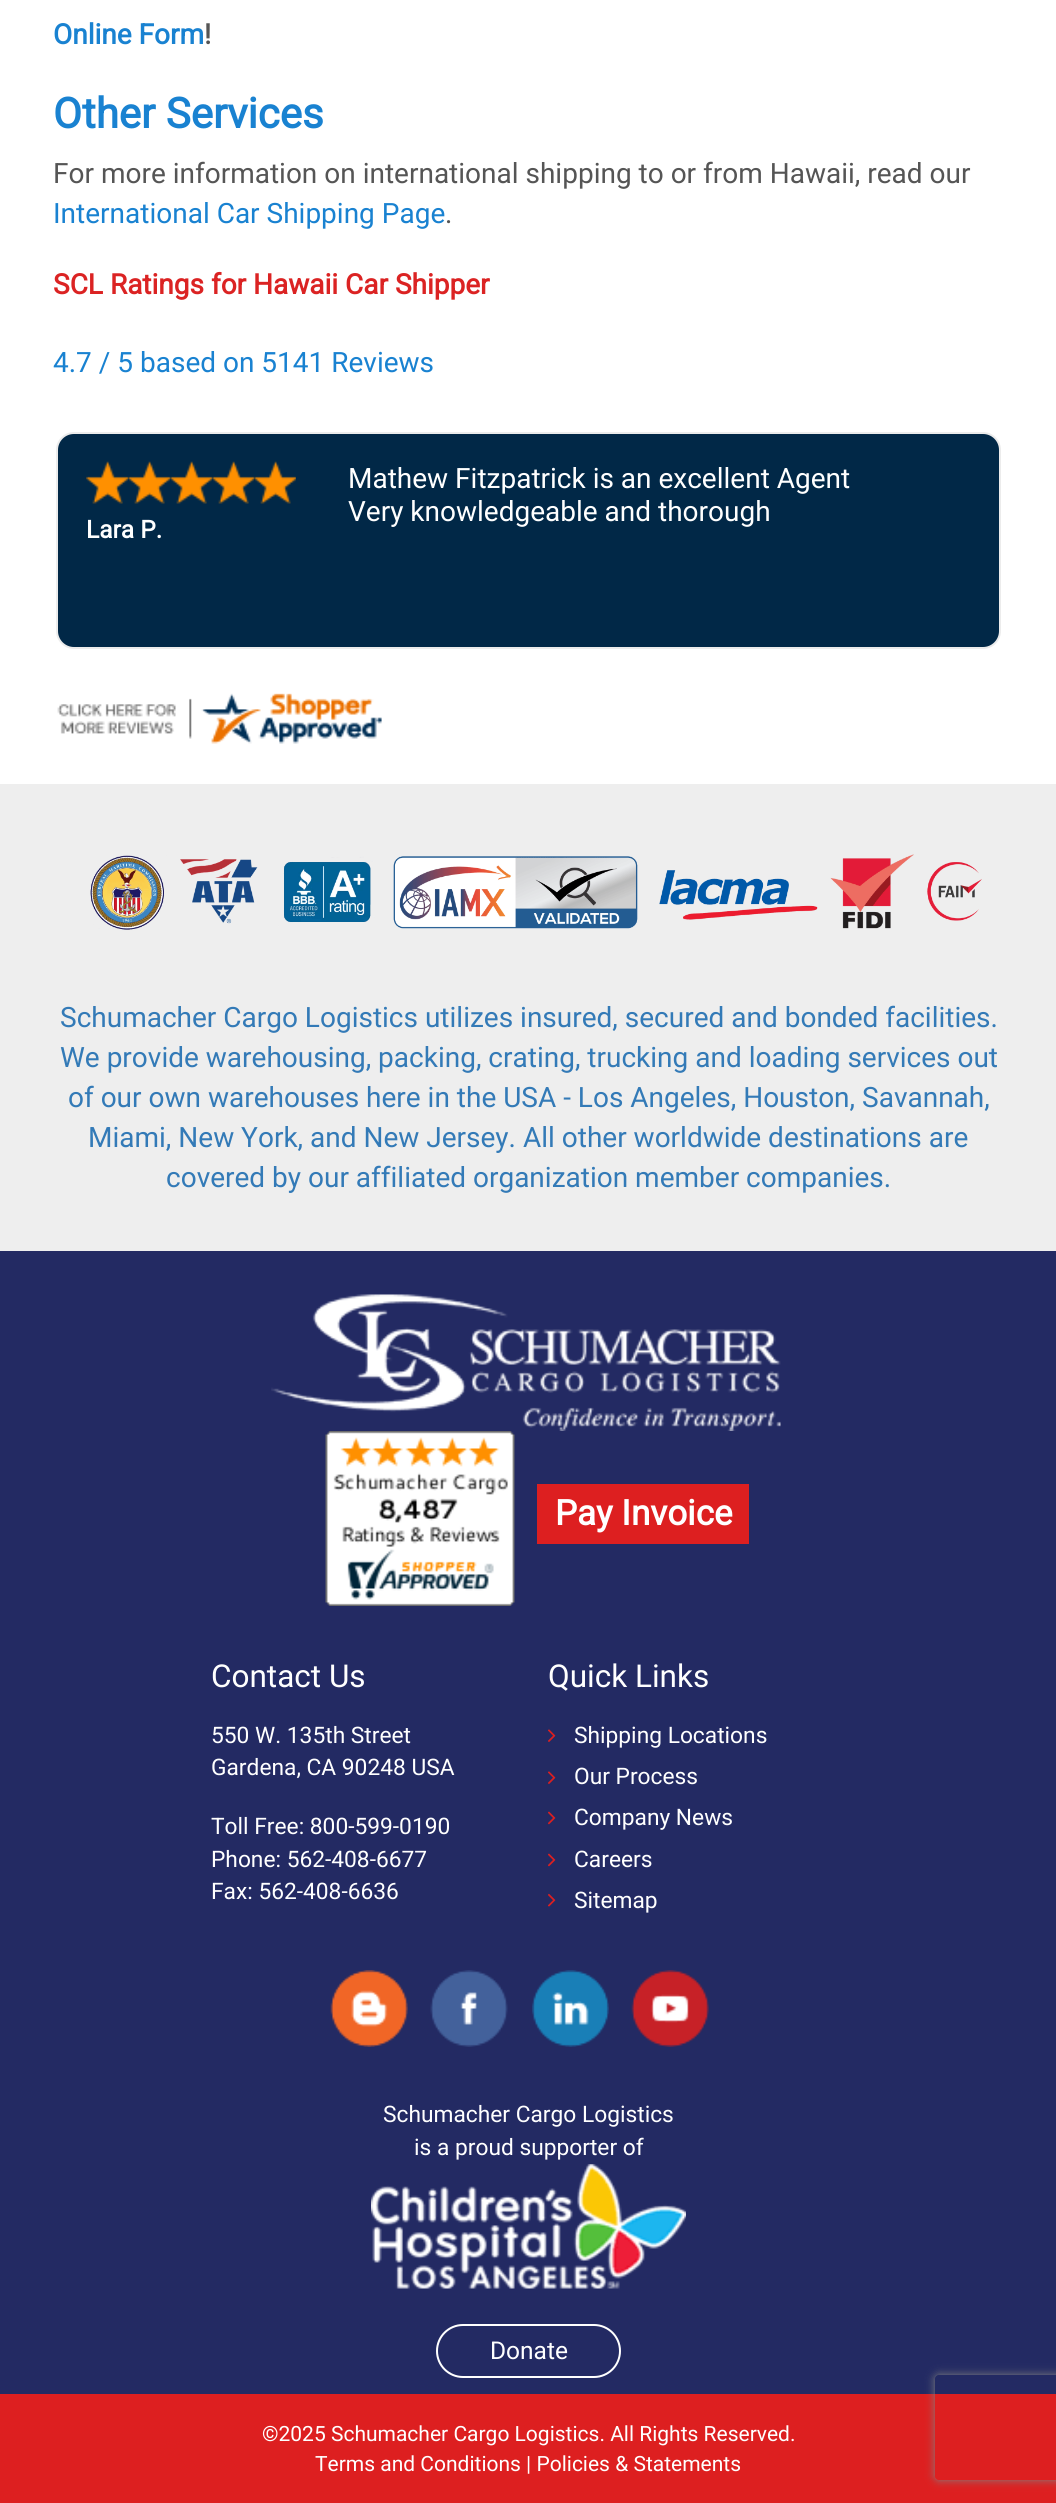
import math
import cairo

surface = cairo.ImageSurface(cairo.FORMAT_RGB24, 1056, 2503)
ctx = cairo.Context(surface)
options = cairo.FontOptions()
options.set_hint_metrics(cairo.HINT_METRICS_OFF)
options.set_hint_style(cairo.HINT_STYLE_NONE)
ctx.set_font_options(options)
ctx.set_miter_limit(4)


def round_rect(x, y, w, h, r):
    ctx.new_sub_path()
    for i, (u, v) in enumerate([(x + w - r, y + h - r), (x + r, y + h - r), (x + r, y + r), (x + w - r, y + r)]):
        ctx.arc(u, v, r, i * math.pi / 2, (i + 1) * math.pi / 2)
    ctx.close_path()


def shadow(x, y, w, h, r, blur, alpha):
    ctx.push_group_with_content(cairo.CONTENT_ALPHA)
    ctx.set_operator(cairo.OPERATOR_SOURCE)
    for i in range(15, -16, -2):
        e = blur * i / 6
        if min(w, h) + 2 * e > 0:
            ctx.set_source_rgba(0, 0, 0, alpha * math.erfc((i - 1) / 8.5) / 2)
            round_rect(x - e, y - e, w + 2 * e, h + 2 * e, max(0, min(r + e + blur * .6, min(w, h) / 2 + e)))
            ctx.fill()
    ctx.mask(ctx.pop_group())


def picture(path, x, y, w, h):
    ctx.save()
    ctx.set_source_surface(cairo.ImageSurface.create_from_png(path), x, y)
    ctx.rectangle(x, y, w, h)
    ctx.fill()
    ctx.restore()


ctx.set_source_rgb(1, 1, 1)
ctx.paint()
ctx.select_font_face("Roboto", cairo.FONT_SLANT_NORMAL, cairo.FONT_WEIGHT_BOLD)
ctx.set_font_size(28)
ctx.set_source_rgb(0.098, 0.51, 0.82)
ctx.move_to(53, 44)
ctx.show_text("Online Form")
ctx.set_source_rgb(0.333, 0.333, 0.333)
ctx.move_to(204, 44)
ctx.show_text("!")
ctx.set_font_size(42)
ctx.set_source_rgb(0.098, 0.51, 0.82)
ctx.move_to(53, 128)
ctx.show_text("Other Services")
ctx.select_font_face("Roboto")
ctx.set_font_size(28)
ctx.set_source_rgb(0.333, 0.333, 0.333)
ctx.move_to(53, 183)
ctx.show_text("For more information on international shipping to or from Hawaii, read our")
ctx.set_source_rgb(0.098, 0.51, 0.82)
ctx.move_to(53, 223)
ctx.show_text("International Car Shipping Page")
ctx.set_source_rgb(0.333, 0.333, 0.333)
ctx.move_to(445, 223)
ctx.show_text(".")
ctx.select_font_face("Roboto", cairo.FONT_SLANT_NORMAL, cairo.FONT_WEIGHT_BOLD)
ctx.set_source_rgb(0.859, 0.137, 0.137)
ctx.move_to(53, 294)
ctx.show_text("SCL Ratings for Hawaii Car Shipper")
ctx.select_font_face("Roboto")
ctx.set_source_rgb(0.098, 0.51, 0.82)
ctx.move_to(53, 372)
ctx.show_text("4.7 / 5 based on 5141 Reviews")
ctx.set_source_rgb(0.004, 0.157, 0.278)
round_rect(57, 433, 943, 215, 17)
ctx.fill_preserve()
ctx.set_source_rgb(0.922, 0.922, 0.922)
ctx.stroke()
ctx.set_source_rgb(1, 1, 1)
ctx.move_to(348, 488)
ctx.show_text("Mathew Fitzpatrick is an excellent Agent")
ctx.move_to(348, 521)
ctx.show_text("Very knowledgeable and thorough")
picture("img1.png", 86, 461, 42, 43)
picture("img2.png", 127, 461, 43, 43)
picture("img3.png", 169, 461, 43, 43)
picture("img3.png", 211, 461, 43, 43)
picture("img2.png", 253, 461, 43, 43)
ctx.select_font_face("Roboto", cairo.FONT_SLANT_NORMAL, cairo.FONT_WEIGHT_BOLD)
ctx.set_font_size(24.5)
ctx.move_to(86, 538)
ctx.show_text("Lara P.")
picture("img4.png", 57, 693, 325, 51)
ctx.set_source_rgb(0.933, 0.933, 0.933)
ctx.rectangle(0, 784, 1056, 467)
ctx.fill()
picture("img5.png", 90, 854, 892, 76)
ctx.select_font_face("Roboto")
ctx.set_font_size(28)
ctx.set_source_rgb(0.2, 0.478, 0.718)
ctx.move_to(60, 1027)
ctx.show_text("Schumacher Cargo Logistics utilizes insured, secured and bonded facilities.")
ctx.move_to(60, 1067)
ctx.show_text("We provide warehousing, packing, crating, trucking and loading services out")
ctx.move_to(68, 1107)
ctx.show_text("of our own warehouses here in the USA - Los Angeles, Houston, Savannah,")
ctx.move_to(88, 1147)
ctx.show_text("Miami, New York, and New Jersey. All other worldwide destinations are")
ctx.move_to(166, 1187)
ctx.show_text("covered by our affiliated organization member companies.")
ctx.set_source_rgb(0.137, 0.165, 0.388)
ctx.rectangle(0, 1251, 1056, 1143)
ctx.fill()
picture("img6.png", 271, 1294, 510, 137)
picture("img7.png", 325, 1431, 190, 175)
ctx.set_source_rgb(0.867, 0.122, 0.125)
ctx.rectangle(537, 1484, 212, 60)
ctx.fill()
ctx.select_font_face("Roboto", cairo.FONT_SLANT_NORMAL, cairo.FONT_WEIGHT_BOLD)
ctx.set_font_size(35)
ctx.set_source_rgb(1, 1, 1)
ctx.move_to(555, 1525)
ctx.show_text("Pay Invoice")
ctx.select_font_face("Roboto")
ctx.set_font_size(31.5)
ctx.move_to(211, 1687)
ctx.show_text("Contact Us")
ctx.set_font_size(22.75)
ctx.move_to(211, 1743)
ctx.show_text("550 W. 135th Street")
ctx.move_to(211, 1775)
ctx.show_text("Gardena, CA 90248 USA")
ctx.move_to(211, 1834)
ctx.show_text("Toll Free: 800-599-0190")
ctx.move_to(211, 1867)
ctx.show_text("Phone: 562-408-6677")
ctx.move_to(211, 1899)
ctx.show_text("Fax: 562-408-6636")
ctx.set_font_size(31.5)
ctx.move_to(548, 1687)
ctx.show_text("Quick Links")
picture("img8.png", 548, 1729, 8, 13)
ctx.set_font_size(22.75)
ctx.move_to(574, 1743)
ctx.show_text("Shipping Locations")
picture("img8.png", 548, 1771, 8, 13)
ctx.move_to(574, 1784)
ctx.show_text("Our Process")
picture("img9.png", 548, 1811, 8, 14)
ctx.move_to(574, 1825)
ctx.show_text("Company News")
picture("img9.png", 548, 1853, 8, 14)
ctx.move_to(574, 1867)
ctx.show_text("Careers")
picture("img10.png", 548, 1893, 8, 14)
ctx.move_to(574, 1908)
ctx.show_text("Sitemap")
picture("img11.png", 330, 1970, 78, 77)
picture("img12.png", 430, 1970, 78, 77)
picture("img13.png", 532, 1970, 77, 77)
picture("img14.png", 631, 1970, 78, 77)
ctx.move_to(383, 2122)
ctx.show_text("Schumacher Cargo Logistics")
ctx.move_to(414, 2155)
ctx.show_text("is a proud supporter of")
picture("img15.png", 371, 2164, 315, 125)
round_rect(437, 2325, 183, 52, 26)
ctx.stroke()
ctx.set_font_size(24.5)
ctx.move_to(490, 2359)
ctx.show_text("Donate")
ctx.set_source_rgb(0.867, 0.122, 0.125)
ctx.rectangle(0, 2394, 1056, 109)
ctx.fill()
ctx.set_font_size(21)
ctx.set_source_rgb(1, 1, 1)
ctx.move_to(262, 2441)
ctx.show_text("©2025 Schumacher Cargo Logistics. All Rights Reserved.")
ctx.move_to(315, 2471)
ctx.show_text("Terms and Conditions | Policies & Statements")
ctx.save()
ctx.set_fill_rule(cairo.FILL_RULE_EVEN_ODD)
ctx.new_path()
ctx.move_to(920, 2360)
ctx.line_to(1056, 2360)
ctx.line_to(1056, 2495)
ctx.line_to(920, 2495)
ctx.close_path()
ctx.move_to(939, 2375)
ctx.line_to(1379, 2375)
ctx.curve_to(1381, 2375, 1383, 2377, 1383, 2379)
ctx.line_to(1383, 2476)
ctx.curve_to(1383, 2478, 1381, 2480, 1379, 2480)
ctx.line_to(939, 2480)
ctx.curve_to(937, 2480, 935, 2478, 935, 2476)
ctx.line_to(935, 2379)
ctx.curve_to(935, 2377, 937, 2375, 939, 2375)
ctx.close_path()
ctx.clip()
ctx.set_source_rgb(0.502, 0.502, 0.502)
shadow(935, 2375, 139, 105, 4, 4.5, 1)
ctx.restore()
surface.write_to_png("page.png")
